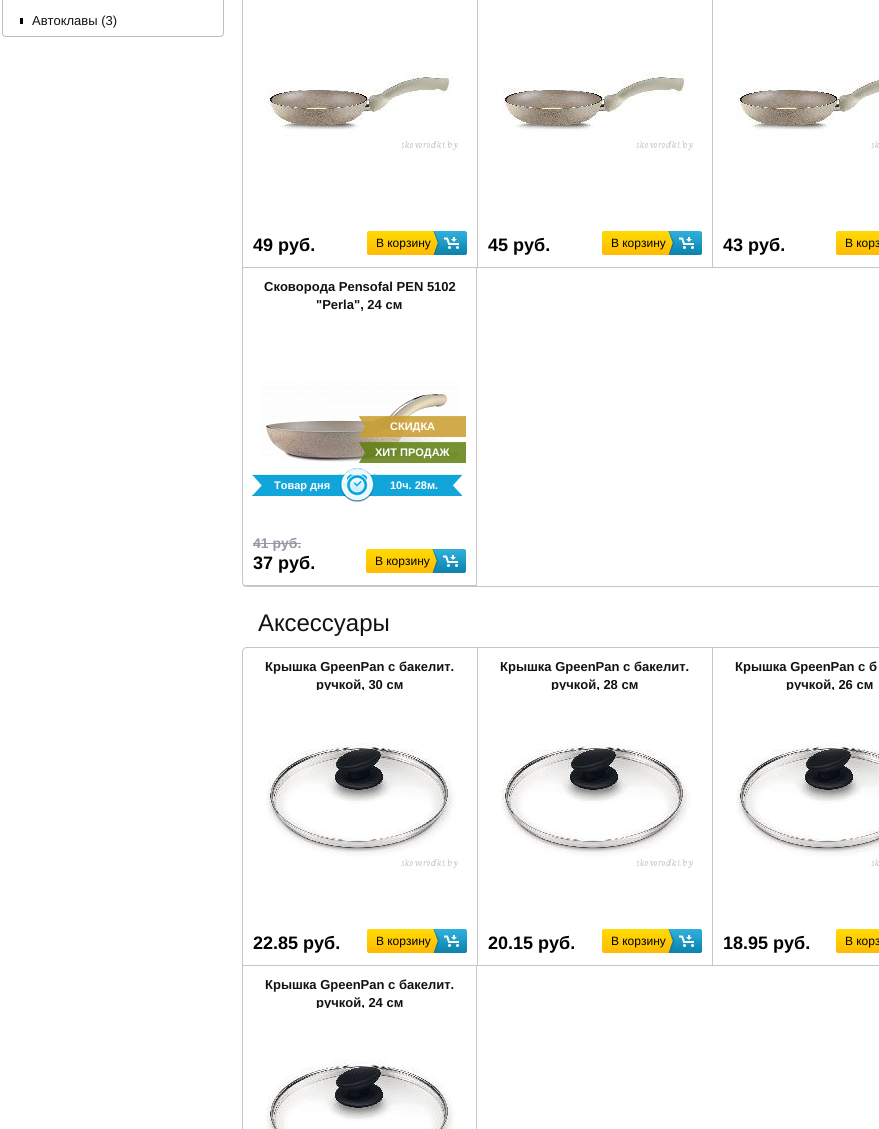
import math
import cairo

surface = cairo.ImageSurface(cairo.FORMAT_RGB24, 879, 1129)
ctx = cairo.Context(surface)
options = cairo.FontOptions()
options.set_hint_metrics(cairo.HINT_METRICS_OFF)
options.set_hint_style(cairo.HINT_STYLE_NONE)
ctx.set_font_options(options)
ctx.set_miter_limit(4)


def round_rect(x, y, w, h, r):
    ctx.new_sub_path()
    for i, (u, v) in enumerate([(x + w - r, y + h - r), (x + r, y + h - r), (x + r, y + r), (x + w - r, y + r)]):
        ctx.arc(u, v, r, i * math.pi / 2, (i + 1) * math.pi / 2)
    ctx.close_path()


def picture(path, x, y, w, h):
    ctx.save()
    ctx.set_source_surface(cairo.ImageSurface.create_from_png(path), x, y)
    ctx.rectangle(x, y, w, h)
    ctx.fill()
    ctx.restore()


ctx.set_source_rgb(1, 1, 1)
ctx.paint()
round_rect(2.5, -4.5, 221, 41, 3.5)
ctx.set_source_rgb(0.741, 0.741, 0.741)
ctx.set_line_width(1)
ctx.stroke()
ctx.set_source_rgb(0, 0, 0)
ctx.rectangle(20, 18, 3, 6)
ctx.fill()
ctx.select_font_face("Liberation Sans")
ctx.set_font_size(13)
ctx.set_source_rgb(0.071, 0.071, 0.071)
ctx.move_to(32, 25)
ctx.show_text("Автоклавы (3)")
round_rect(242.5, -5.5, 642, 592, 4.5)
ctx.set_source_rgb(0.776, 0.776, 0.776)
ctx.stroke()
ctx.rectangle(477, 0, 1, 268)
ctx.fill()
ctx.rectangle(243, 267, 235, 1)
ctx.fill()
picture("img1.png", 260, 72, 198, 79)
ctx.select_font_face("Liberation Sans", cairo.FONT_SLANT_NORMAL, cairo.FONT_WEIGHT_BOLD)
ctx.set_font_size(18)
ctx.set_source_rgb(0, 0, 0)
ctx.move_to(253, 251)
ctx.show_text("49 руб.")
picture("img2.png", 367, 231, 100, 24)
ctx.select_font_face("Liberation Sans")
ctx.set_font_size(12)
ctx.move_to(376, 247)
ctx.show_text("В корзину")
ctx.set_source_rgb(0.776, 0.776, 0.776)
ctx.rectangle(712, 0, 1, 268)
ctx.fill()
ctx.rectangle(478, 267, 401, 1)
ctx.fill()
picture("img1.png", 495, 72, 198, 79)
ctx.select_font_face("Liberation Sans", cairo.FONT_SLANT_NORMAL, cairo.FONT_WEIGHT_BOLD)
ctx.set_font_size(18)
ctx.set_source_rgb(0, 0, 0)
ctx.move_to(488, 251)
ctx.show_text("45 руб.")
picture("img2.png", 602, 231, 100, 24)
ctx.select_font_face("Liberation Sans")
ctx.set_font_size(12)
ctx.move_to(611, 247)
ctx.show_text("В корзину")
picture("img3.png", 730, 76, 149, 73)
ctx.select_font_face("Liberation Sans", cairo.FONT_SLANT_NORMAL, cairo.FONT_WEIGHT_BOLD)
ctx.set_font_size(18)
ctx.move_to(723, 251)
ctx.show_text("43 руб.")
picture("img4.png", 836, 231, 43, 24)
ctx.select_font_face("Liberation Sans")
ctx.set_font_size(12)
ctx.move_to(845, 247)
ctx.show_text("В корз")
ctx.set_source_rgb(0.78, 0.78, 0.78)
ctx.rectangle(476, 268, 1, 318)
ctx.fill()
ctx.rectangle(243, 585, 234, 1)
ctx.fill()
ctx.select_font_face("Liberation Sans", cairo.FONT_SLANT_NORMAL, cairo.FONT_WEIGHT_BOLD)
ctx.set_font_size(13)
ctx.set_source_rgb(0.071, 0.071, 0.071)
ctx.move_to(264, 291)
ctx.show_text("Сковорода Pensofal PEN 5102")
ctx.move_to(316, 309)
ctx.show_text("\"Perla\", 24 см")
picture("img5.png", 260, 382, 200, 80)
picture("img6.png", 359, 416, 107, 21)
ctx.set_font_size(11)
ctx.set_source_rgb(1, 1, 1)
ctx.move_to(390, 430)
ctx.show_text("СКИДКА")
picture("img7.png", 359, 442, 107, 21)
ctx.move_to(375, 456)
ctx.show_text("ХИТ ПРОДАЖ")
picture("img8.png", 252, 468, 210, 34)
ctx.move_to(274, 489)
ctx.show_text("Товар дня")
ctx.move_to(390, 489)
ctx.show_text("10ч. 28м.")
ctx.set_font_size(14)
ctx.set_source_rgb(0.592, 0.592, 0.651)
ctx.move_to(253, 548)
ctx.show_text("41 руб.")
ctx.rectangle(253, 543, 48, 1)
ctx.fill()
ctx.set_font_size(18)
ctx.set_source_rgb(0, 0, 0)
ctx.move_to(253, 569)
ctx.show_text("37 руб.")
picture("img2.png", 366, 549, 100, 24)
ctx.select_font_face("Liberation Sans")
ctx.set_font_size(12)
ctx.move_to(375, 565)
ctx.show_text("В корзину")
ctx.set_font_size(24)
ctx.set_source_rgb(0.071, 0.071, 0.071)
ctx.move_to(258, 631)
ctx.show_text("Аксессуары")
round_rect(242.5, 647.5, 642, 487, 4.5)
ctx.set_source_rgb(0.776, 0.776, 0.776)
ctx.stroke()
ctx.rectangle(477, 648, 1, 318)
ctx.fill()
ctx.rectangle(243, 965, 235, 1)
ctx.fill()
ctx.select_font_face("Liberation Sans", cairo.FONT_SLANT_NORMAL, cairo.FONT_WEIGHT_BOLD)
ctx.set_font_size(13)
ctx.set_source_rgb(0.071, 0.071, 0.071)
ctx.move_to(265, 671)
ctx.show_text("Крышка GpeenPan с бакелит.")
ctx.save()
ctx.rectangle(253, 658, 214, 32)
ctx.clip()
ctx.move_to(316, 689)
ctx.show_text("ручкой, 30 см")
ctx.restore()
picture("img9.png", 266, 741, 192, 127)
ctx.set_font_size(18)
ctx.set_source_rgb(0, 0, 0)
ctx.move_to(253, 949)
ctx.show_text("22.85 руб.")
picture("img2.png", 367, 929, 100, 24)
ctx.select_font_face("Liberation Sans")
ctx.set_font_size(12)
ctx.move_to(376, 945)
ctx.show_text("В корзину")
ctx.set_source_rgb(0.776, 0.776, 0.776)
ctx.rectangle(712, 648, 1, 318)
ctx.fill()
ctx.rectangle(478, 965, 401, 1)
ctx.fill()
ctx.select_font_face("Liberation Sans", cairo.FONT_SLANT_NORMAL, cairo.FONT_WEIGHT_BOLD)
ctx.set_font_size(13)
ctx.set_source_rgb(0.071, 0.071, 0.071)
ctx.move_to(500, 671)
ctx.show_text("Крышка GpeenPan с бакелит.")
ctx.save()
ctx.rectangle(488, 658, 214, 32)
ctx.clip()
ctx.move_to(551, 689)
ctx.show_text("ручкой, 28 см")
ctx.restore()
picture("img9.png", 501, 741, 192, 127)
ctx.set_font_size(18)
ctx.set_source_rgb(0, 0, 0)
ctx.move_to(488, 949)
ctx.show_text("20.15 руб.")
picture("img2.png", 602, 929, 100, 24)
ctx.select_font_face("Liberation Sans")
ctx.set_font_size(12)
ctx.move_to(611, 945)
ctx.show_text("В корзину")
ctx.select_font_face("Liberation Sans", cairo.FONT_SLANT_NORMAL, cairo.FONT_WEIGHT_BOLD)
ctx.set_font_size(13)
ctx.set_source_rgb(0.071, 0.071, 0.071)
ctx.move_to(735, 671)
ctx.show_text("Крышка GpeenPan с б")
ctx.save()
ctx.rectangle(723, 658, 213, 32)
ctx.clip()
ctx.move_to(786, 689)
ctx.show_text("ручкой, 26 см")
ctx.restore()
picture("img10.png", 736, 741, 143, 127)
ctx.set_font_size(18)
ctx.set_source_rgb(0, 0, 0)
ctx.move_to(723, 949)
ctx.show_text("18.95 руб.")
picture("img4.png", 836, 929, 43, 24)
ctx.select_font_face("Liberation Sans")
ctx.set_font_size(12)
ctx.move_to(845, 945)
ctx.show_text("В корз")
ctx.set_source_rgb(0.78, 0.78, 0.78)
ctx.rectangle(476, 966, 1, 163)
ctx.fill()
ctx.select_font_face("Liberation Sans", cairo.FONT_SLANT_NORMAL, cairo.FONT_WEIGHT_BOLD)
ctx.set_font_size(13)
ctx.set_source_rgb(0.071, 0.071, 0.071)
ctx.move_to(265, 989)
ctx.show_text("Крышка GpeenPan с бакелит.")
ctx.save()
ctx.rectangle(253, 976, 213, 32)
ctx.clip()
ctx.move_to(316, 1007)
ctx.show_text("ручкой, 24 см")
ctx.restore()
picture("img11.png", 266, 1059, 189, 70)
surface.write_to_png("page.png")
